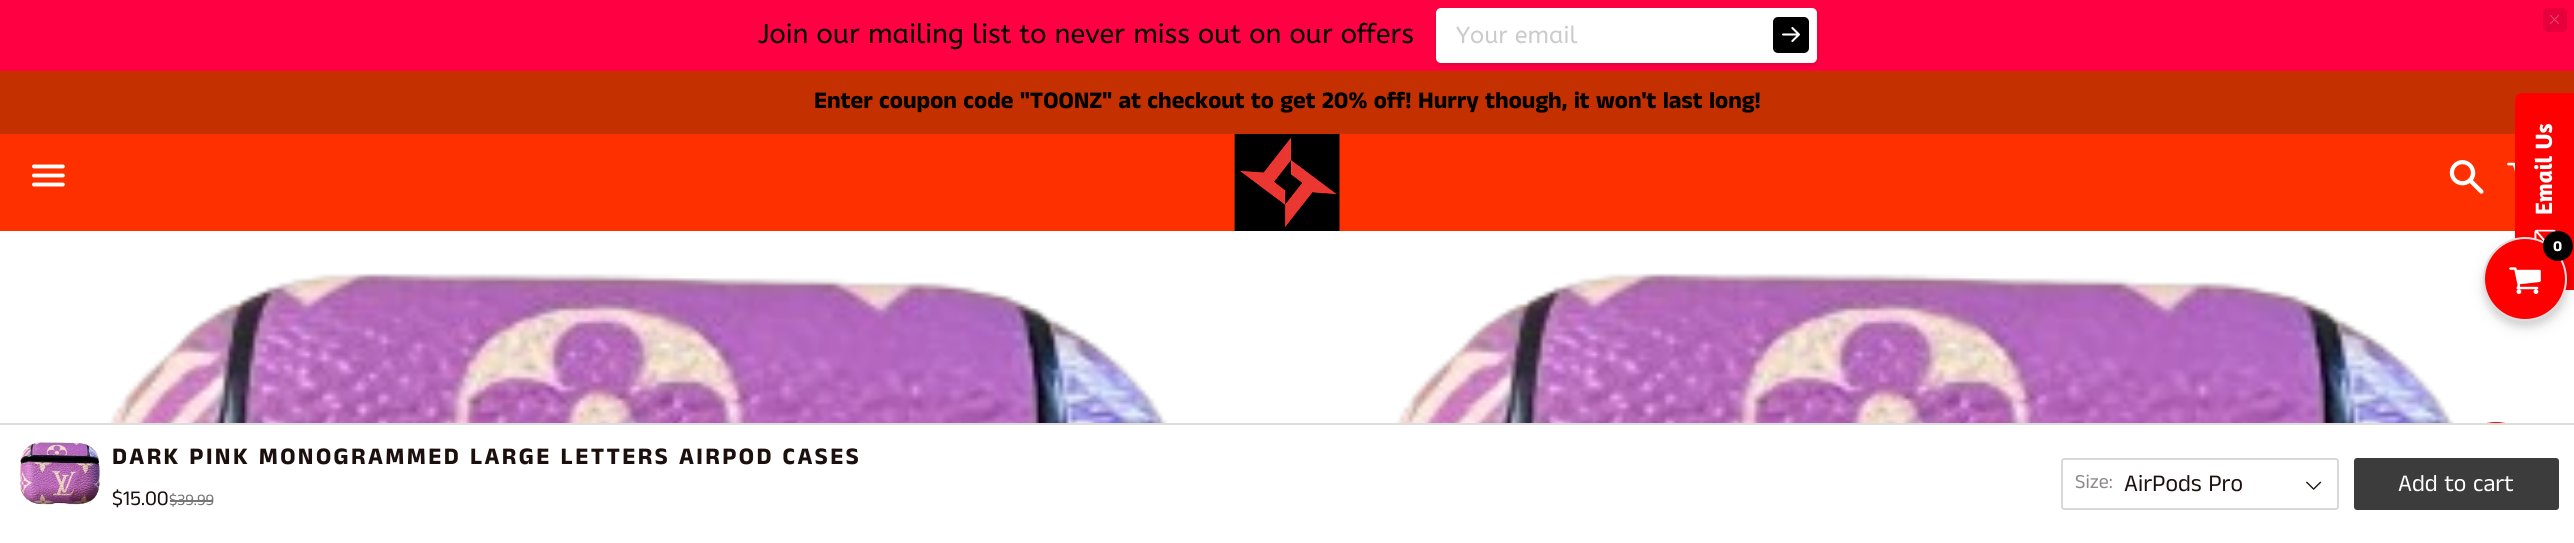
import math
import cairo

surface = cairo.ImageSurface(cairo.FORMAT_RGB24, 2574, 543)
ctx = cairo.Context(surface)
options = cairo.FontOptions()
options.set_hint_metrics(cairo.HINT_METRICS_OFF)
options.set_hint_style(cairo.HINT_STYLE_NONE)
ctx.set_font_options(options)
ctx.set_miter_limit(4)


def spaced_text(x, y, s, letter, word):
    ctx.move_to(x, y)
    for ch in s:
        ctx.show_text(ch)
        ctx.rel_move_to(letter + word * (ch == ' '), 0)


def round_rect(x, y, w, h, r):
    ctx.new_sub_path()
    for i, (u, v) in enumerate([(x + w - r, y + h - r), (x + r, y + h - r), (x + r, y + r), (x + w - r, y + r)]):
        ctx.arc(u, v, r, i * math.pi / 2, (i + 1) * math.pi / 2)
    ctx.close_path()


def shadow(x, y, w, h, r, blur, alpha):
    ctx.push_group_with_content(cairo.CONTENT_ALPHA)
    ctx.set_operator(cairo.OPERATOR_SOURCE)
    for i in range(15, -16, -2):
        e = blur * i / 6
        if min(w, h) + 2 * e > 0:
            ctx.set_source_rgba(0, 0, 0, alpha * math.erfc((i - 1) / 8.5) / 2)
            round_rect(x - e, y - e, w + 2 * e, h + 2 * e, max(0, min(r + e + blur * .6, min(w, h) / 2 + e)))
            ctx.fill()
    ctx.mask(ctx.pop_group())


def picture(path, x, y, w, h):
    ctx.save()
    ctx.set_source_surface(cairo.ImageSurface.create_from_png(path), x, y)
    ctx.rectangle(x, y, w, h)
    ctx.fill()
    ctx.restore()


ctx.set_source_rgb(1, 1, 1)
ctx.paint()
ctx.set_source_rgb(1, 0, 0.263)
ctx.rectangle(0, 0, 2574, 71)
ctx.fill()
ctx.select_font_face("ABeeZee")
ctx.set_font_size(27)
ctx.set_source_rgb(0, 0, 0)
ctx.move_to(758, 43)
ctx.show_text("Join our mailing list to never miss out on our offers")
ctx.set_source_rgb(0.769, 0.188, 0)
ctx.rectangle(0, 71, 2574, 63)
ctx.fill()
ctx.set_source_rgb(0, 0, 0)
shadow(1436, 11, 381, 55, 5, 3, 0.1)
ctx.set_source_rgb(1, 1, 1)
round_rect(1436, 8, 381, 55, 5)
ctx.fill()
ctx.set_font_size(23.5)
ctx.set_source_rgb(0.796, 0.796, 0.796)
ctx.move_to(1456, 43)
ctx.show_text("Your email")
ctx.set_source_rgb(0, 0, 0)
round_rect(1773, 17, 36, 36, 5)
ctx.fill()
picture("img1.png", 1782, 27, 18, 15)
ctx.set_source_rgb(0.902, 0, 0.235)
round_rect(2543, 8, 24, 24, 5)
ctx.fill()
picture("img2.png", 2550, 15, 9, 9)
ctx.select_font_face("Anek Tamil", cairo.FONT_SLANT_NORMAL, cairo.FONT_WEIGHT_BOLD)
ctx.set_font_size(24)
ctx.set_source_rgb(0, 0, 0)
ctx.move_to(814, 108)
ctx.show_text("Enter coupon code \"TOONZ\" at checkout to get 20% off! Hurry though, it won't last long!")
ctx.set_source_rgb(1, 0.188, 0)
ctx.rectangle(0, 134, 2515, 97)
ctx.fill()
picture("img3.png", 32, 164, 33, 23)
picture("img4.png", 1234, 134, 106, 97)
picture("img5.png", 2449, 160, 35, 34)
picture("img6.png", 2507, 162, 8, 10)
picture("img7.png", 107, 273, 1061, 150)
picture("img7.png", 1394, 273, 1061, 150)
ctx.set_source_rgb(1, 0, 0)
ctx.new_path()
ctx.move_to(2515, 282)
ctx.line_to(2515, 101)
ctx.curve_to(2515, 96, 2518, 93, 2522, 93)
ctx.line_to(2574, 93)
ctx.line_to(2574, 290)
ctx.line_to(2522, 290)
ctx.curve_to(2518, 290, 2515, 286, 2515, 282)
ctx.close_path()
ctx.fill()
ctx.select_font_face("Amaranth", cairo.FONT_SLANT_NORMAL, cairo.FONT_WEIGHT_BOLD)
ctx.set_source_rgb(1, 1, 1)
ctx.save()
ctx.translate(2552, 215)
ctx.rotate(-90 * math.pi / 180)
ctx.move_to(0, 0)
ctx.show_text("Email Us")
ctx.restore()
picture("img8.png", 2534, 229, 22, 13)
ctx.set_source_rgb(0, 0, 0)
shadow(2483, 243, 84, 84, 42, 3, 0.08)
shadow(2484, 243, 84, 84, 42, 7.5, 0.12)
ctx.set_source_rgb(1, 0, 0)
ctx.arc(2525, 279, 41, 0, 2 * math.pi)
ctx.fill_preserve()
ctx.set_source_rgb(0.867, 0.867, 0.867)
ctx.stroke()
ctx.set_source_rgb(0, 0, 0)
ctx.arc(2558, 246, 15, 0, 2 * math.pi)
ctx.fill()
ctx.select_font_face("Anek Tamil", cairo.FONT_SLANT_NORMAL, cairo.FONT_WEIGHT_BOLD)
ctx.set_font_size(15)
ctx.set_source_rgb(1, 1, 1)
ctx.move_to(2553, 251)
ctx.show_text("0")
picture("img9.png", 2509, 267, 32, 27)
ctx.set_source_rgb(1, 0, 0)
ctx.arc(2496, 467, 45, 0, 2 * math.pi)
ctx.fill()
ctx.set_source_rgb(1, 1, 1)
ctx.rectangle(2451, 425, 90, 87)
ctx.fill()
ctx.set_source_rgb(0.867, 0.867, 0.867)
ctx.rectangle(0, 423, 2574, 2)
ctx.fill()
picture("img10.png", 20, 442, 80, 63)
ctx.set_font_size(24)
ctx.set_source_rgb(0.106, 0.063, 0.055)
spaced_text(112, 464, "DARK PINK MONOGRAMMED LARGE LETTERS AIRPOD CASES", 2.4, 0)
ctx.select_font_face("Anek Tamil")
ctx.set_font_size(21)
ctx.move_to(112, 505)
ctx.show_text("$15.00")
ctx.set_font_size(16)
ctx.set_source_rgb(0.463, 0.463, 0.463)
ctx.move_to(169, 505)
ctx.show_text("$39.99")
ctx.rectangle(170, 500, 43, 2)
ctx.fill()
round_rect(2062, 459, 276, 50, 2)
ctx.set_source_rgb(0.851, 0.851, 0.851)
ctx.stroke()
ctx.set_font_size(20)
ctx.set_source_rgb(0.553, 0.533, 0.529)
ctx.move_to(2075, 488)
ctx.show_text("Size:")
ctx.set_font_size(24)
ctx.set_source_rgb(0.106, 0.063, 0.055)
ctx.move_to(2124, 491)
ctx.show_text("AirPods Pro")
picture("img11.png", 2306, 481, 16, 9)
ctx.set_source_rgb(0.235, 0.235, 0.235)
round_rect(2354, 458, 205, 52, 3)
ctx.fill()
ctx.set_source_rgb(1, 1, 1)
ctx.move_to(2398, 491)
ctx.show_text("Add to cart")
surface.write_to_png("page.png")
